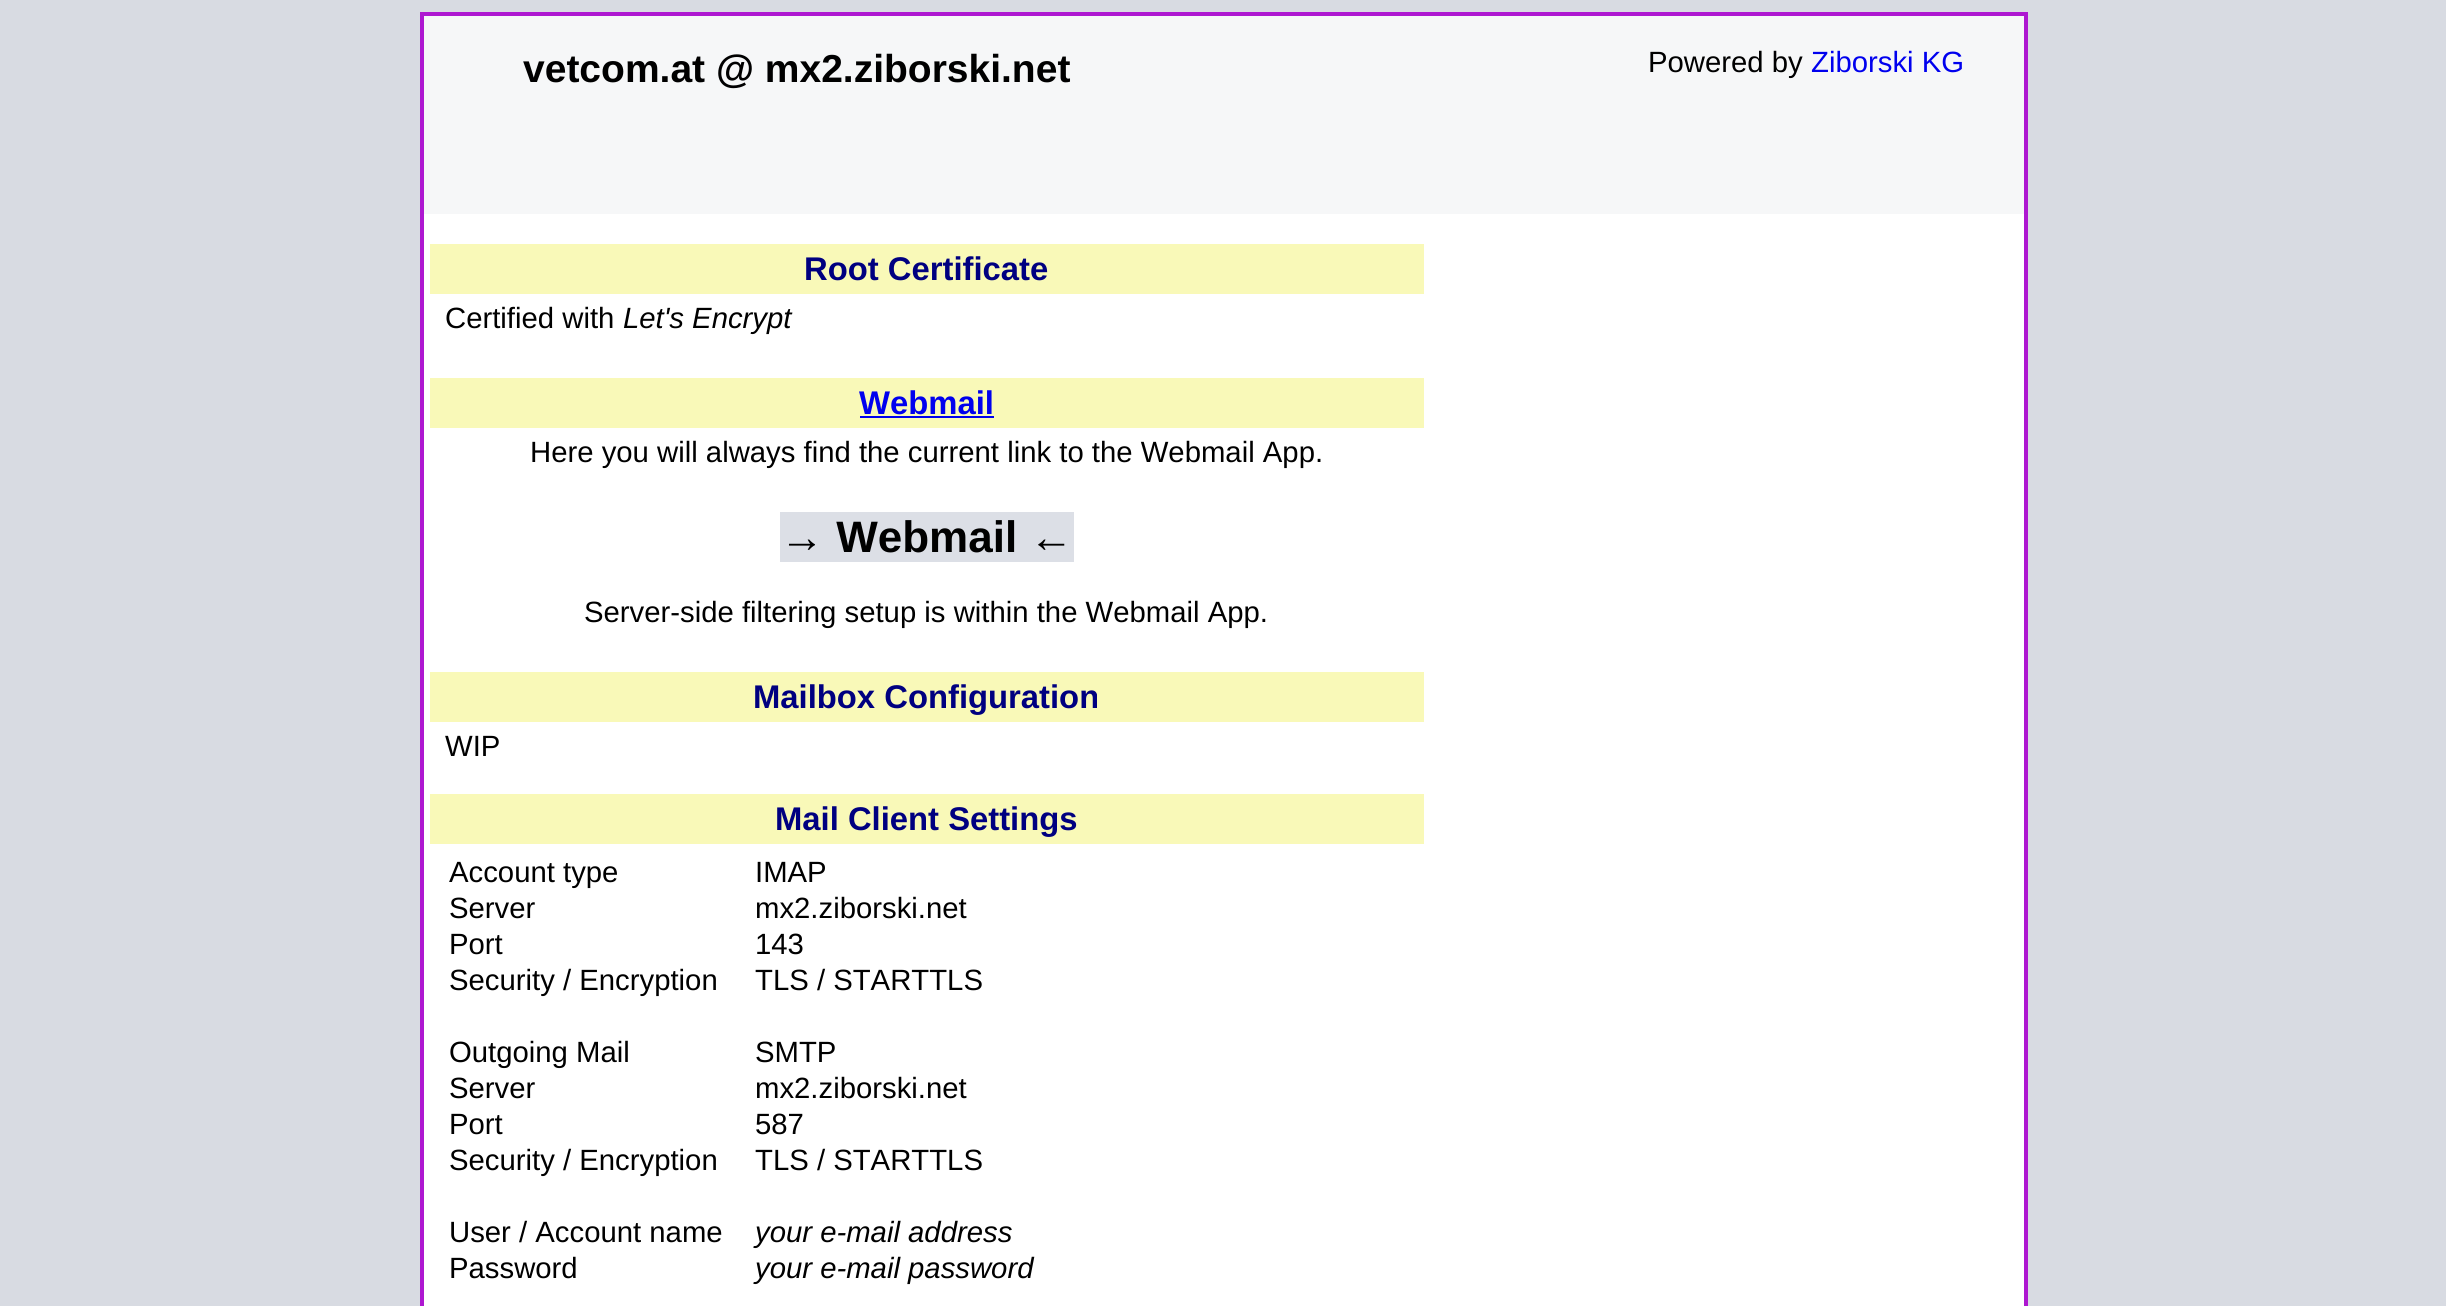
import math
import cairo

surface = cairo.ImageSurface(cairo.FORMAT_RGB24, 2446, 1306)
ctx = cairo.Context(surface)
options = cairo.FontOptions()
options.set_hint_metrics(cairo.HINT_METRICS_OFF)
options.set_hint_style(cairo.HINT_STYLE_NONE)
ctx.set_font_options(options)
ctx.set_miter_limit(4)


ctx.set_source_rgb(0.847, 0.859, 0.886)
ctx.paint()
ctx.set_source_rgb(1, 1, 1)
ctx.rectangle(424, 214, 1600, 1092)
ctx.fill()
ctx.rectangle(422, 14, 1604, 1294)
ctx.set_source_rgb(0.682, 0.09, 0.82)
ctx.set_line_width(4)
ctx.stroke()
ctx.set_source_rgb(0.961, 0.965, 0.969)
ctx.rectangle(424, 16, 1600, 198)
ctx.fill()
ctx.select_font_face("Liberation Sans", cairo.FONT_SLANT_NORMAL, cairo.FONT_WEIGHT_BOLD)
ctx.set_font_size(39)
ctx.set_source_rgb(0, 0, 0)
ctx.move_to(523, 82)
ctx.show_text("vetcom.at @ mx2.ziborski.net")
ctx.select_font_face("Liberation Sans")
ctx.set_font_size(29.3)
ctx.move_to(1648, 72)
ctx.show_text("Powered by")
ctx.set_source_rgb(0, 0, 0.933)
ctx.move_to(1811, 72)
ctx.show_text("Ziborski KG")
ctx.set_source_rgb(0.976, 0.976, 0.722)
ctx.rectangle(430, 244, 994, 50)
ctx.fill()
ctx.select_font_face("Liberation Sans", cairo.FONT_SLANT_NORMAL, cairo.FONT_WEIGHT_BOLD)
ctx.set_font_size(32.8)
ctx.set_source_rgb(0, 0, 0.502)
ctx.move_to(804, 280)
ctx.show_text("Root Certificate")
ctx.select_font_face("Liberation Sans")
ctx.set_font_size(29.3)
ctx.set_source_rgb(0, 0, 0)
ctx.move_to(445, 328)
ctx.show_text("Certified with")
ctx.select_font_face("Liberation Sans", cairo.FONT_SLANT_ITALIC)
ctx.move_to(623, 328)
ctx.show_text("Let's Encrypt")
ctx.set_source_rgb(0.976, 0.976, 0.722)
ctx.rectangle(430, 378, 994, 50)
ctx.fill()
ctx.select_font_face("Liberation Sans", cairo.FONT_SLANT_NORMAL, cairo.FONT_WEIGHT_BOLD)
ctx.set_font_size(32.8)
ctx.set_source_rgb(0, 0, 0.933)
ctx.move_to(859, 414)
ctx.show_text("Webmail")
ctx.rectangle(860, 416, 134, 2)
ctx.fill()
ctx.select_font_face("Liberation Sans")
ctx.set_font_size(29.3)
ctx.set_source_rgb(0, 0, 0)
ctx.move_to(530, 462)
ctx.show_text("Here you will always find the current link to the Webmail App.")
ctx.set_source_rgb(0.863, 0.875, 0.902)
ctx.rectangle(780, 512, 294, 50)
ctx.fill()
ctx.select_font_face("Liberation Sans", cairo.FONT_SLANT_NORMAL, cairo.FONT_WEIGHT_BOLD)
ctx.set_font_size(44)
ctx.set_source_rgb(0, 0, 0)
ctx.move_to(780, 552)
ctx.show_text("→ Webmail ←")
ctx.select_font_face("Liberation Sans")
ctx.set_font_size(29.3)
ctx.move_to(584, 622)
ctx.show_text("Server-side filtering setup is within the Webmail App.")
ctx.set_source_rgb(0.976, 0.976, 0.722)
ctx.rectangle(430, 672, 994, 50)
ctx.fill()
ctx.select_font_face("Liberation Sans", cairo.FONT_SLANT_NORMAL, cairo.FONT_WEIGHT_BOLD)
ctx.set_font_size(32.8)
ctx.set_source_rgb(0, 0, 0.502)
ctx.move_to(753, 708)
ctx.show_text("Mailbox Configuration")
ctx.select_font_face("Liberation Sans")
ctx.set_font_size(29.3)
ctx.set_source_rgb(0, 0, 0)
ctx.move_to(445, 756)
ctx.show_text("WIP")
ctx.set_source_rgb(0.976, 0.976, 0.722)
ctx.rectangle(430, 794, 994, 50)
ctx.fill()
ctx.select_font_face("Liberation Sans", cairo.FONT_SLANT_NORMAL, cairo.FONT_WEIGHT_BOLD)
ctx.set_font_size(32.8)
ctx.set_source_rgb(0, 0, 0.502)
ctx.move_to(775, 830)
ctx.show_text("Mail Client Settings")
ctx.select_font_face("Liberation Sans")
ctx.set_font_size(29.3)
ctx.set_source_rgb(0, 0, 0)
ctx.move_to(449, 882)
ctx.show_text("Account type")
ctx.move_to(755, 882)
ctx.show_text("IMAP")
ctx.move_to(449, 918)
ctx.show_text("Server")
ctx.move_to(755, 918)
ctx.show_text("mx2.ziborski.net")
ctx.move_to(449, 954)
ctx.show_text("Port")
ctx.move_to(755, 954)
ctx.show_text("143")
ctx.move_to(449, 990)
ctx.show_text("Security / Encryption")
ctx.move_to(755, 990)
ctx.show_text("TLS / STARTTLS")
ctx.move_to(449, 1062)
ctx.show_text("Outgoing Mail")
ctx.move_to(755, 1062)
ctx.show_text("SMTP")
ctx.move_to(449, 1098)
ctx.show_text("Server")
ctx.move_to(755, 1098)
ctx.show_text("mx2.ziborski.net")
ctx.move_to(449, 1134)
ctx.show_text("Port")
ctx.move_to(755, 1134)
ctx.show_text("587")
ctx.move_to(449, 1170)
ctx.show_text("Security / Encryption")
ctx.move_to(755, 1170)
ctx.show_text("TLS / STARTTLS")
ctx.move_to(449, 1242)
ctx.show_text("User / Account name")
ctx.select_font_face("Liberation Sans", cairo.FONT_SLANT_ITALIC)
ctx.move_to(755, 1242)
ctx.show_text("your e-mail address")
ctx.select_font_face("Liberation Sans")
ctx.move_to(449, 1278)
ctx.show_text("Password")
ctx.select_font_face("Liberation Sans", cairo.FONT_SLANT_ITALIC)
ctx.move_to(755, 1278)
ctx.show_text("your e-mail password")
surface.write_to_png("page.png")
